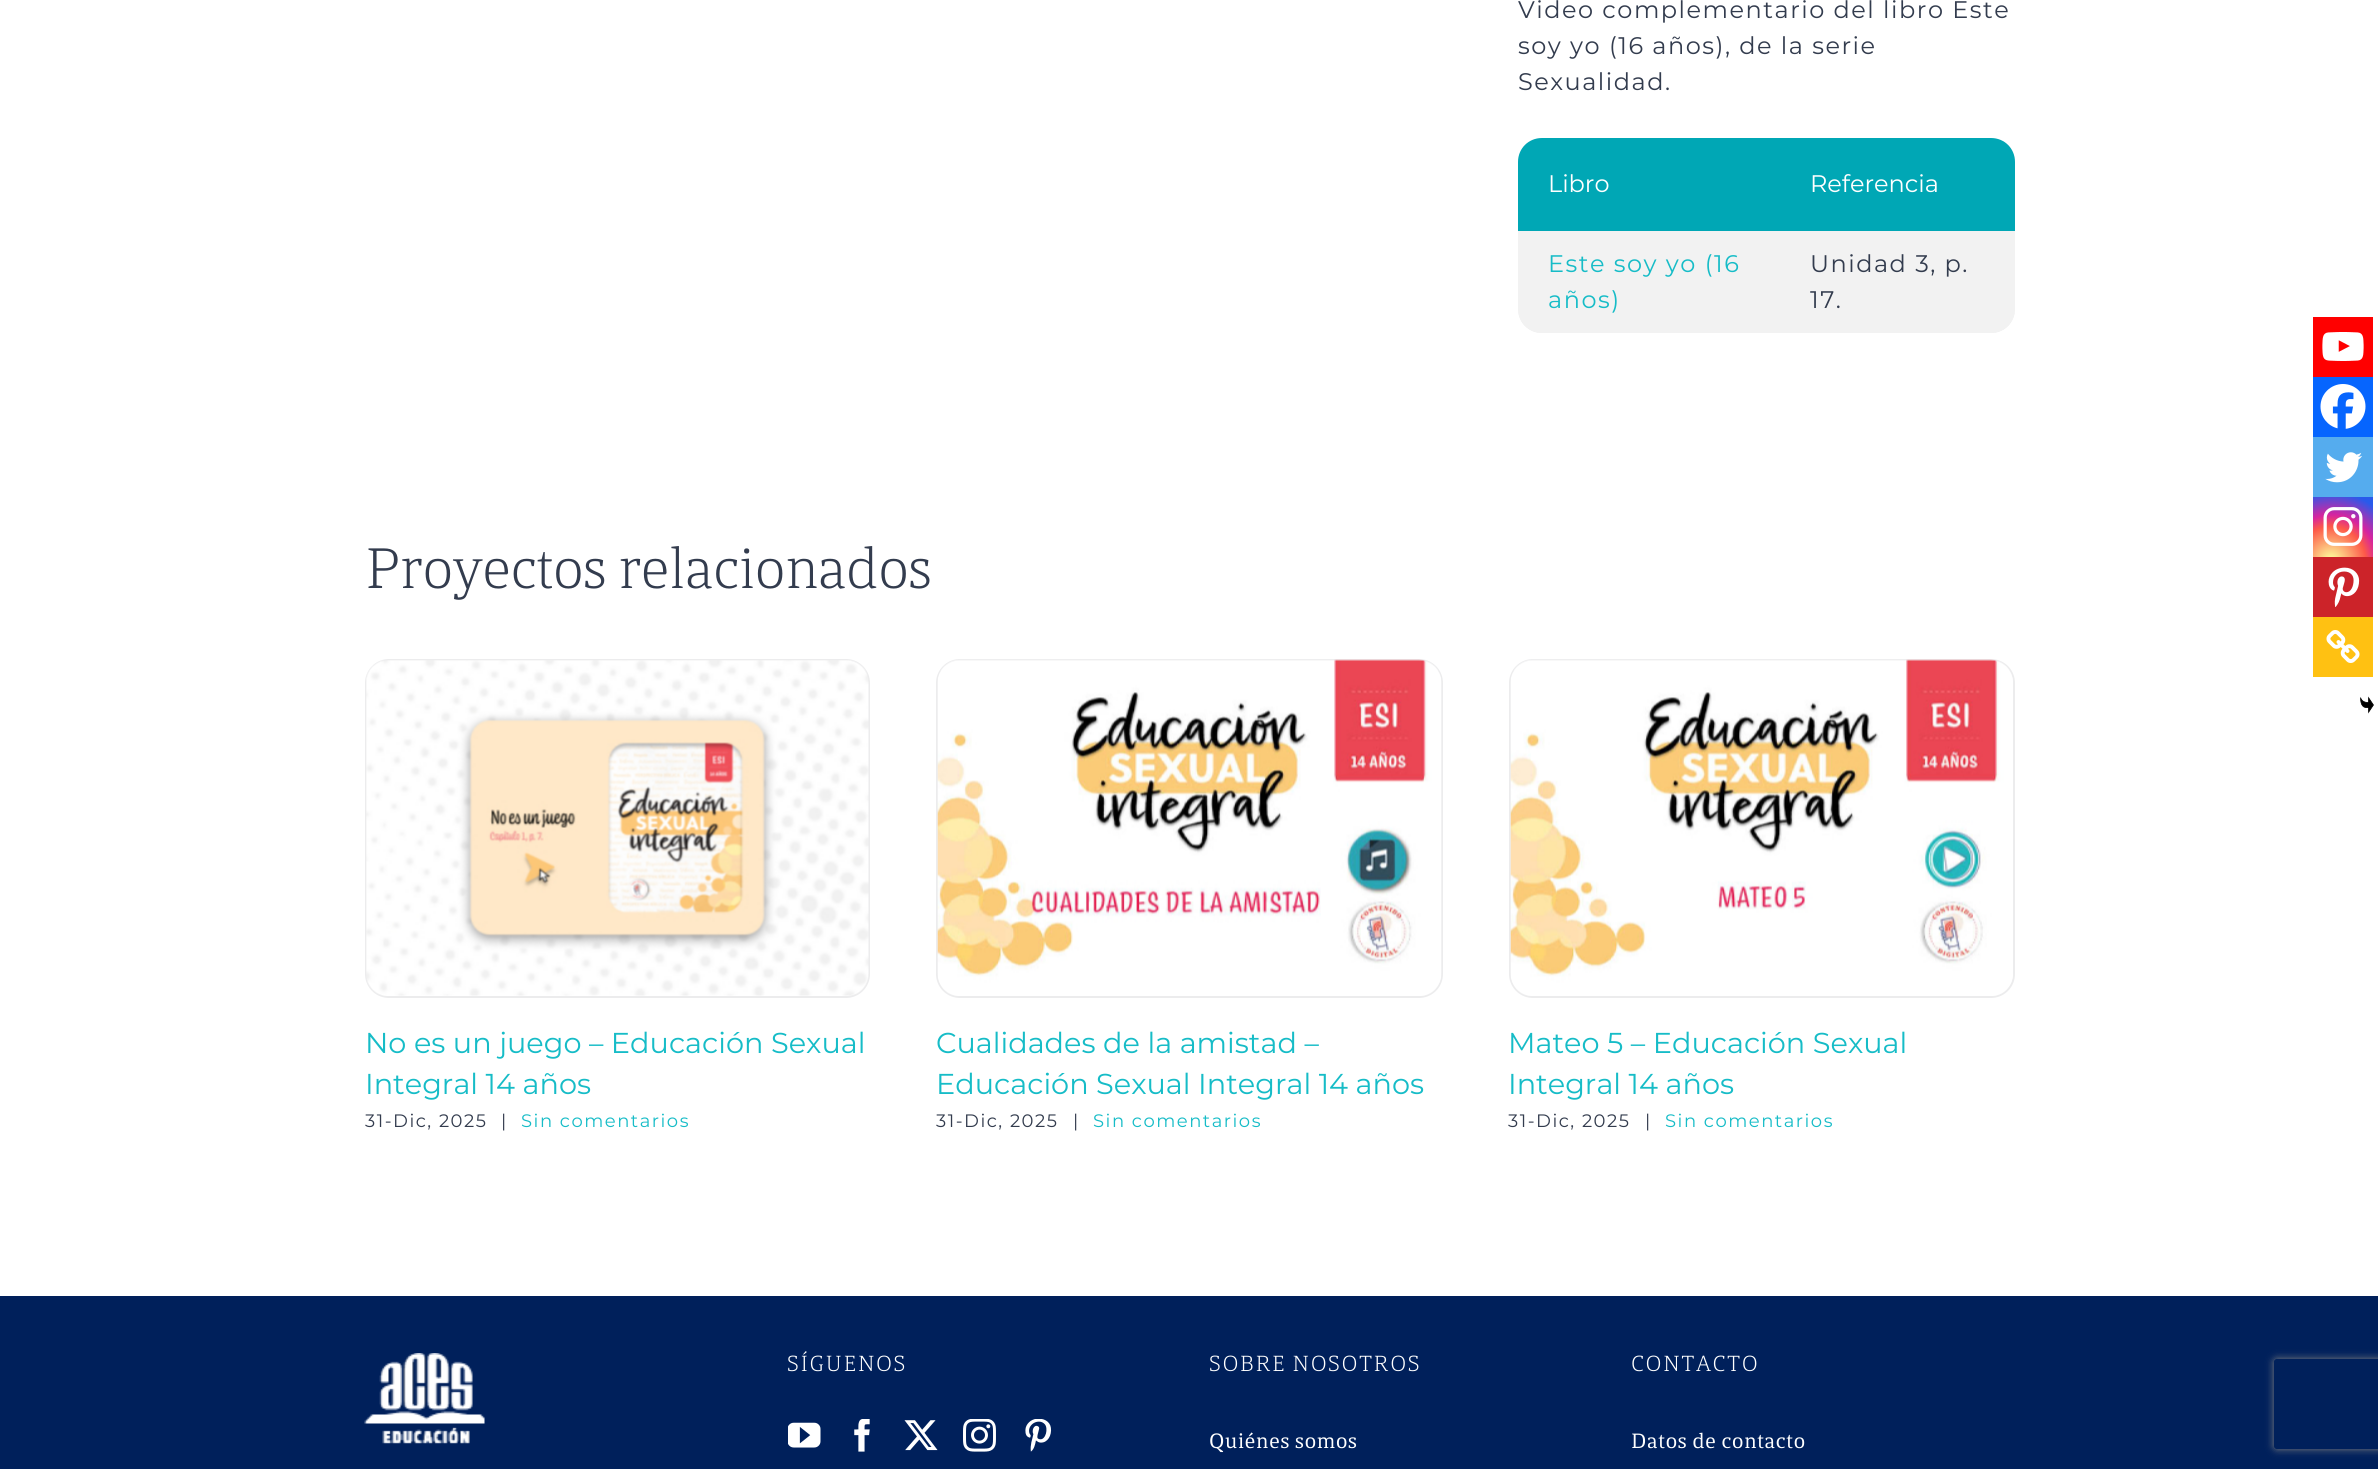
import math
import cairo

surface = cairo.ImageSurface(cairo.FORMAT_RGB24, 2378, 1469)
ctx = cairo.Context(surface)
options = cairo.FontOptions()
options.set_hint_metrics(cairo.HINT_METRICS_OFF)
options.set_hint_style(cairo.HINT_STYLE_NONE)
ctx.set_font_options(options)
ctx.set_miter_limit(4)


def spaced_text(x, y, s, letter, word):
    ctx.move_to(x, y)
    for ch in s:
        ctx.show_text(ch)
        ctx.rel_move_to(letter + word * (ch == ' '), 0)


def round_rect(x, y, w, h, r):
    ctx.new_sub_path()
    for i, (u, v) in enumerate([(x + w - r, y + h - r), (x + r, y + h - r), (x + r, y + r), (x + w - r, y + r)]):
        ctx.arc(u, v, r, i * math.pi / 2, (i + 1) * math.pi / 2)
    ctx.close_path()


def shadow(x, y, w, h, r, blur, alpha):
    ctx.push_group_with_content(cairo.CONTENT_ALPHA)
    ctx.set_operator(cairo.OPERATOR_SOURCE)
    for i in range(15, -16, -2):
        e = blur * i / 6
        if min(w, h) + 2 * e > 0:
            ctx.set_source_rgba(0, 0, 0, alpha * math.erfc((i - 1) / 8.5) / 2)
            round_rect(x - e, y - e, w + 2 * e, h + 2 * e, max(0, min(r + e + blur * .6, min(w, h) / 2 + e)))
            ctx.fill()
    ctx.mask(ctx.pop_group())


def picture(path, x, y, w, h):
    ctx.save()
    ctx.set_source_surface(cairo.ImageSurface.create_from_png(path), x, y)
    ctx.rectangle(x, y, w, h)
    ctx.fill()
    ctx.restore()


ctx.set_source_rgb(1, 1, 1)
ctx.paint()
ctx.select_font_face("Montserrat")
ctx.set_font_size(24)
ctx.set_source_rgb(0.2, 0.235, 0.306)
spaced_text(1518, 18, "Video complementario del libro Este", 1.5, 0)
spaced_text(1518, 54, "soy yo (16 años), de la serie", 1.5, 0)
spaced_text(1518, 90, "Sexualidad.", 1.5, 0)
ctx.save()
round_rect(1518, 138, 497, 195, 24)
ctx.clip()
ctx.set_source_rgb(0, 0, 0)
shadow(1518, 140, 497, 195, 0, 2, 0.08)
ctx.restore()
ctx.set_source_rgb(0, 0.655, 0.71)
ctx.new_path()
ctx.move_to(1542, 138)
ctx.line_to(1781, 138)
ctx.line_to(1781, 231)
ctx.line_to(1518, 231)
ctx.line_to(1518, 162)
ctx.curve_to(1518, 148.5, 1528.5, 138, 1542, 138)
ctx.close_path()
ctx.fill()
ctx.set_source_rgb(1, 1, 1)
ctx.move_to(1548, 192)
ctx.show_text("Libro")
ctx.set_source_rgb(0, 0.655, 0.71)
ctx.new_path()
ctx.move_to(1781, 138)
ctx.line_to(1991, 138)
ctx.curve_to(2004.5, 138, 2015, 148.5, 2015, 162)
ctx.line_to(2015, 231)
ctx.line_to(1781, 231)
ctx.close_path()
ctx.fill()
ctx.set_source_rgb(1, 1, 1)
ctx.move_to(1810, 192)
ctx.show_text("Referencia")
ctx.set_source_rgb(0.949, 0.949, 0.949)
ctx.new_path()
ctx.move_to(1518, 231)
ctx.line_to(1781, 231)
ctx.line_to(1781, 333)
ctx.line_to(1542, 333)
ctx.curve_to(1528.5, 333, 1518, 322.5, 1518, 309)
ctx.close_path()
ctx.fill()
ctx.set_source_rgb(0.086, 0.737, 0.78)
spaced_text(1548, 272, "Este soy yo (16", 1.5, 0)
spaced_text(1548, 308, "años)", 1.5, 0)
ctx.set_source_rgb(0.949, 0.949, 0.949)
ctx.new_path()
ctx.move_to(1781, 231)
ctx.line_to(2015, 231)
ctx.line_to(2015, 309)
ctx.curve_to(2015, 322.5, 2004.5, 333, 1991, 333)
ctx.line_to(1781, 333)
ctx.close_path()
ctx.fill()
ctx.set_source_rgb(0.2, 0.235, 0.306)
spaced_text(1810, 272, "Unidad 3, p.", 1.5, 0)
spaced_text(1810, 308, "17.", 1.5, 0)
ctx.set_source_rgb(1, 0, 0)
ctx.rectangle(2313, 317, 60, 60)
ctx.fill()
picture("img1.png", 2322, 332, 42, 29)
ctx.set_source_rgb(0.027, 0.396, 0.996)
ctx.rectangle(2313, 377, 60, 60)
ctx.fill()
picture("img2.png", 2320, 384, 46, 45)
ctx.set_source_rgb(0.333, 0.675, 0.933)
ctx.rectangle(2313, 437, 60, 60)
ctx.fill()
picture("img3.png", 2325, 452, 37, 31)
gradient = cairo.RadialGradient(2331, 561, 0, 2331, 561, 77)
gradient.add_color_stop_rgba(0, 0.992, 0.957, 0.592, 1)
gradient.add_color_stop_rgba(0.05, 0.992, 0.957, 0.592, 1)
gradient.add_color_stop_rgba(0.45, 0.992, 0.349, 0.286, 1)
gradient.add_color_stop_rgba(0.6, 0.839, 0.141, 0.624, 1)
gradient.add_color_stop_rgba(0.9, 0.157, 0.353, 0.922, 1)
ctx.set_source(gradient)
ctx.rectangle(2313, 497, 60, 60)
ctx.fill()
picture("img4.png", 2323, 507, 40, 39)
ctx.set_source_rgb(0.8, 0.137, 0.161)
ctx.rectangle(2313, 557, 60, 60)
ctx.fill()
picture("img5.png", 2328, 567, 32, 40)
ctx.set_source_rgb(1, 0.757, 0.071)
ctx.rectangle(2313, 617, 60, 60)
ctx.fill()
picture("img6.png", 2326, 630, 34, 33)
picture("img7.png", 2360, 696, 14, 18)
ctx.select_font_face("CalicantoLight")
ctx.set_font_size(62.5)
ctx.set_source_rgb(0.2, 0.235, 0.306)
ctx.move_to(365, 588)
ctx.show_text("Proyectos relacionados")
round_rect(366, 660, 503, 337, 23)
ctx.set_source_rgb(0.922, 0.925, 0.929)
ctx.stroke()
picture("img8.png", 366, 660, 503, 336)
ctx.select_font_face("Montserrat")
ctx.set_font_size(28.75)
ctx.set_source_rgb(0.086, 0.737, 0.78)
ctx.move_to(365, 1053)
ctx.show_text("No es un juego – Educación Sexual")
ctx.move_to(365, 1094)
ctx.show_text("Integral 14 años")
ctx.set_font_size(18)
ctx.set_source_rgb(0.2, 0.235, 0.306)
spaced_text(365, 1127, "31-Dic, 2025", 1.5, 0)
spaced_text(501, 1127, "|", 1.5, 0)
ctx.set_source_rgb(0.086, 0.737, 0.78)
spaced_text(521, 1127, "Sin comentarios", 1.5, 0)
round_rect(937, 660, 505, 337, 23)
ctx.set_source_rgb(0.922, 0.925, 0.929)
ctx.stroke()
picture("img9.png", 937, 659, 505, 337)
ctx.set_font_size(28.75)
ctx.set_source_rgb(0.086, 0.737, 0.78)
ctx.move_to(936, 1053)
ctx.show_text("Cualidades de la amistad –")
ctx.move_to(936, 1094)
ctx.show_text("Educación Sexual Integral 14 años")
ctx.set_font_size(18)
ctx.set_source_rgb(0.2, 0.235, 0.306)
spaced_text(936, 1127, "31-Dic, 2025", 1.5, 0)
spaced_text(1073, 1127, "|", 1.5, 0)
ctx.set_source_rgb(0.086, 0.737, 0.78)
spaced_text(1093, 1127, "Sin comentarios", 1.5, 0)
round_rect(1510, 660, 504, 337, 23)
ctx.set_source_rgb(0.922, 0.925, 0.929)
ctx.stroke()
picture("img10.png", 1510, 659, 503, 337)
ctx.set_font_size(28.75)
ctx.set_source_rgb(0.086, 0.737, 0.78)
ctx.move_to(1508, 1053)
ctx.show_text("Mateo 5 – Educación Sexual")
ctx.move_to(1508, 1094)
ctx.show_text("Integral 14 años")
ctx.set_font_size(18)
ctx.set_source_rgb(0.2, 0.235, 0.306)
spaced_text(1508, 1127, "31-Dic, 2025", 1.5, 0)
spaced_text(1645, 1127, "|", 1.5, 0)
ctx.set_source_rgb(0.086, 0.737, 0.78)
spaced_text(1665, 1127, "Sin comentarios", 1.5, 0)
ctx.set_source_rgb(0, 0.125, 0.357)
ctx.rectangle(0, 1296, 2378, 173)
ctx.fill()
picture("img11.png", 364, 1353, 121, 91)
ctx.select_font_face("CalicantoLight")
ctx.set_font_size(24)
ctx.set_source_rgb(1, 1, 1)
spaced_text(787, 1371, "SÍGUENOS", 1.5, 0)
picture("img12.png", 788, 1422, 33, 26)
picture("img13.png", 854, 1419, 16, 33)
picture("img14.png", 904, 1420, 34, 31)
picture("img15.png", 963, 1419, 33, 33)
picture("img16.png", 1025, 1419, 27, 33)
spaced_text(1209, 1371, "SOBRE NOSOTROS", 1.5, 0)
ctx.select_font_face("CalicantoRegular")
ctx.set_font_size(22.5)
spaced_text(1209, 1448, "Quiénes somos", 0.75, 0)
ctx.select_font_face("CalicantoLight")
ctx.set_font_size(24)
spaced_text(1631, 1371, "CONTACTO", 1.5, 0)
ctx.select_font_face("CalicantoRegular")
ctx.set_font_size(22.5)
spaced_text(1631, 1448, "Datos de contacto", 0.75, 0)
ctx.save()
ctx.set_fill_rule(cairo.FILL_RULE_EVEN_ODD)
ctx.new_path()
ctx.move_to(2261, 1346)
ctx.line_to(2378, 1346)
ctx.line_to(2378, 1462)
ctx.line_to(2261, 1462)
ctx.close_path()
ctx.move_to(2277, 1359)
ctx.line_to(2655, 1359)
ctx.curve_to(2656.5, 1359, 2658, 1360.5, 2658, 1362)
ctx.line_to(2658, 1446)
ctx.curve_to(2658, 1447.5, 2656.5, 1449, 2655, 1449)
ctx.line_to(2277, 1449)
ctx.curve_to(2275.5, 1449, 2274, 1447.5, 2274, 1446)
ctx.line_to(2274, 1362)
ctx.curve_to(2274, 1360.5, 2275.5, 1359, 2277, 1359)
ctx.close_path()
ctx.clip()
ctx.set_source_rgb(0.502, 0.502, 0.502)
shadow(2274, 1359, 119, 90, 3, 4, 1)
ctx.restore()
surface.write_to_png("page.png")
